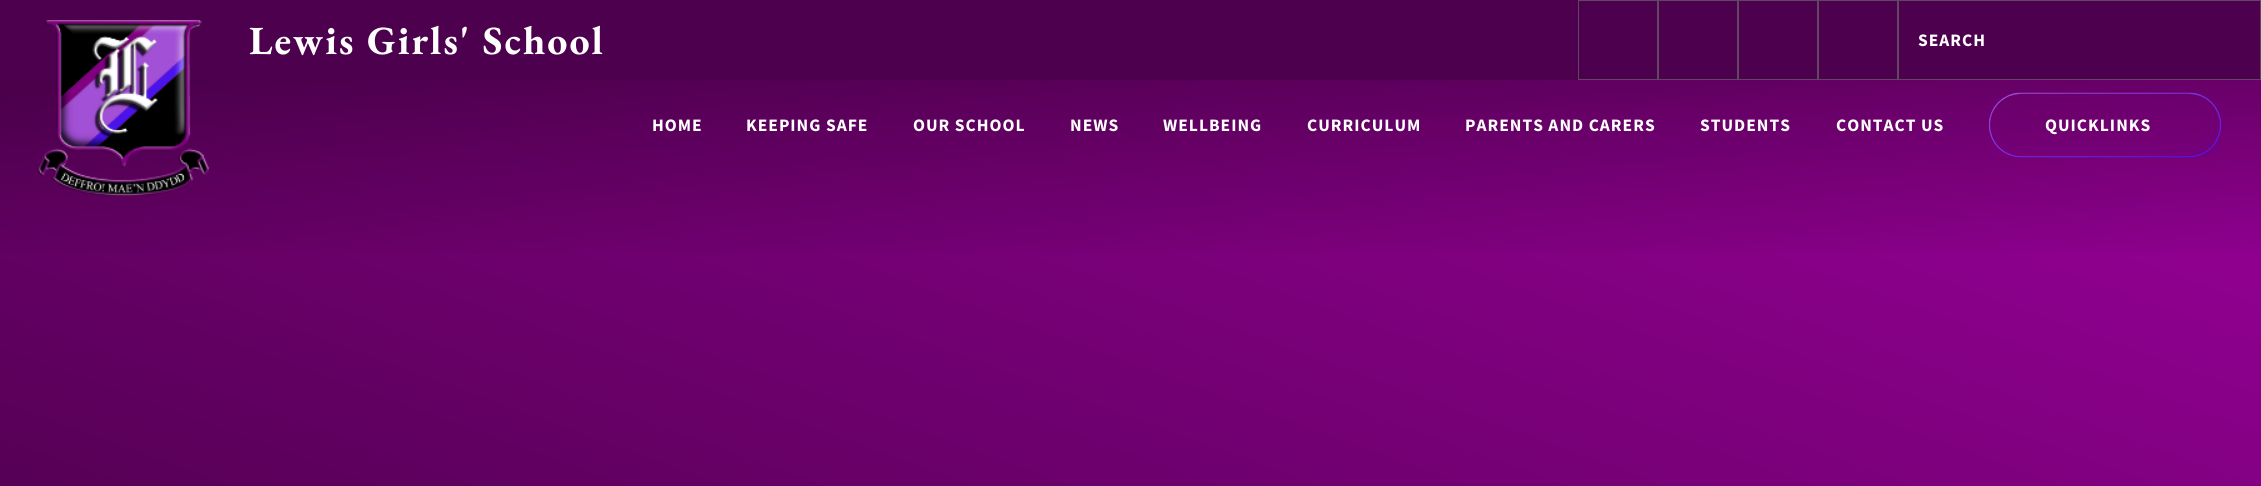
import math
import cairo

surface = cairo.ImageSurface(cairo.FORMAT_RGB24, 2261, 486)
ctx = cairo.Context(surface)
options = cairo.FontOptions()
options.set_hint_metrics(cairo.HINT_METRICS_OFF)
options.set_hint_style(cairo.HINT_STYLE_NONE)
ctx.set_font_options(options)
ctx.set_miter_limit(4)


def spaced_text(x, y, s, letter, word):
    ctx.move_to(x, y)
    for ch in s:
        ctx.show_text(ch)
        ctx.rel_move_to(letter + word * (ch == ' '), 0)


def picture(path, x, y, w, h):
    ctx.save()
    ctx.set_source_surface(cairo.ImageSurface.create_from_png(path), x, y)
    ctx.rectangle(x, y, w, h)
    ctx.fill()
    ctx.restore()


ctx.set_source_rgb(1, 1, 1)
ctx.paint()
ctx.set_source_rgb(0.302, 0, 0.302)
ctx.rectangle(0, 0, 2260, 80)
ctx.fill()
gradient = cairo.LinearGradient(1354, -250, 908, 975)
gradient.add_color_stop_rgba(0, 0.604, 0, 0.604, 1)
gradient.add_color_stop_rgba(1, 0.302, 0, 0.302, 1)
ctx.set_source(gradient)
ctx.rectangle(0, 80, 2261, 406)
ctx.fill()
gradient = cairo.LinearGradient(1131, 266, 1131, 80)
gradient.add_color_stop_rgba(0, 0, 0, 0, 0)
gradient.add_color_stop_rgba(1, 0, 0, 0, 0.32)
ctx.set_source(gradient)
ctx.rectangle(0, 80, 2261, 173)
ctx.fill()
picture("img1.png", 37, 20, 172, 177)
ctx.select_font_face("EB Garamond", cairo.FONT_SLANT_NORMAL, cairo.FONT_WEIGHT_BOLD)
ctx.set_font_size(40)
ctx.set_source_rgb(1, 1, 1)
spaced_text(249, 54, "Lewis Girls' School", 2, 0)
ctx.rectangle(1578.5, 0.5, 79, 79)
ctx.set_source_rgb(0.388, 0.275, 0.388)
ctx.set_line_width(1)
ctx.stroke()
ctx.rectangle(1658.5, 0.5, 79, 79)
ctx.stroke()
ctx.rectangle(1738.5, 0.5, 79, 79)
ctx.stroke()
ctx.rectangle(1818.5, 0.5, 79, 79)
ctx.stroke()
ctx.rectangle(1898.5, 0.5, 362, 79)
ctx.stroke()
ctx.select_font_face("Source Sans Pro", cairo.FONT_SLANT_NORMAL, cairo.FONT_WEIGHT_BOLD)
ctx.set_font_size(17.5)
ctx.set_source_rgb(1, 1, 1)
spaced_text(1918, 46, "SEARCH", 1, 0)
spaced_text(652, 131, "HOME", 1, 0)
spaced_text(746, 131, "KEEPING SAFE", 1, 0)
spaced_text(913, 131, "OUR SCHOOL", 1, 0)
spaced_text(1070, 131, "NEWS", 1, 0)
spaced_text(1163, 131, "WELLBEING", 1, 0)
spaced_text(1307, 131, "CURRICULUM", 1, 0)
spaced_text(1465, 131, "PARENTS AND CARERS", 1, 0)
spaced_text(1700, 131, "STUDENTS", 1, 0)
spaced_text(1836, 131, "CONTACT US", 1, 0)
spaced_text(2045, 131, "QUICKLINKS", 1, 0)
picture("img2.png", 1988, 92, 234, 66)
surface.write_to_png("page.png")
